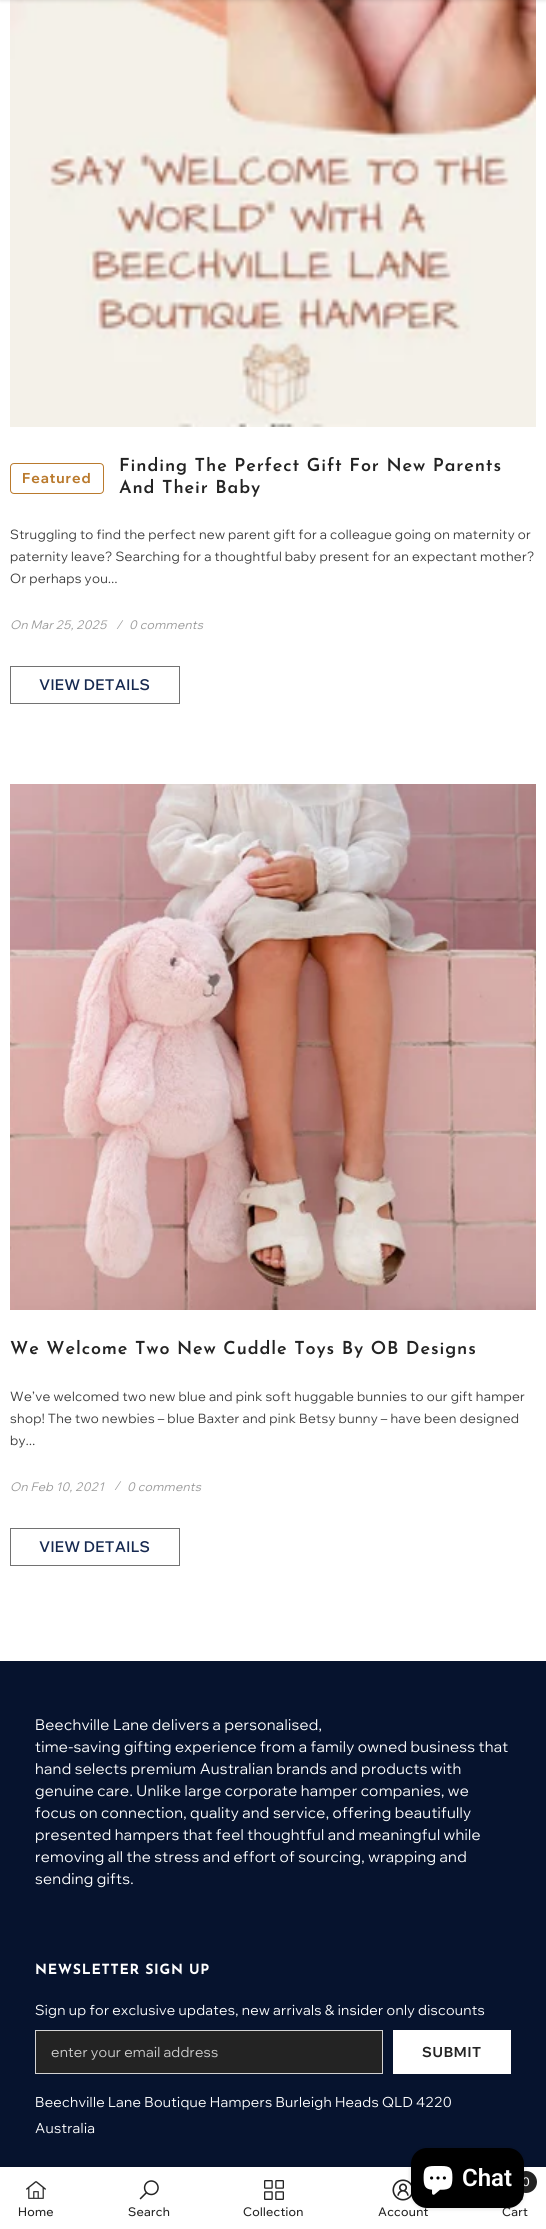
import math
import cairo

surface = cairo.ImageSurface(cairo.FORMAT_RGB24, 546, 2229)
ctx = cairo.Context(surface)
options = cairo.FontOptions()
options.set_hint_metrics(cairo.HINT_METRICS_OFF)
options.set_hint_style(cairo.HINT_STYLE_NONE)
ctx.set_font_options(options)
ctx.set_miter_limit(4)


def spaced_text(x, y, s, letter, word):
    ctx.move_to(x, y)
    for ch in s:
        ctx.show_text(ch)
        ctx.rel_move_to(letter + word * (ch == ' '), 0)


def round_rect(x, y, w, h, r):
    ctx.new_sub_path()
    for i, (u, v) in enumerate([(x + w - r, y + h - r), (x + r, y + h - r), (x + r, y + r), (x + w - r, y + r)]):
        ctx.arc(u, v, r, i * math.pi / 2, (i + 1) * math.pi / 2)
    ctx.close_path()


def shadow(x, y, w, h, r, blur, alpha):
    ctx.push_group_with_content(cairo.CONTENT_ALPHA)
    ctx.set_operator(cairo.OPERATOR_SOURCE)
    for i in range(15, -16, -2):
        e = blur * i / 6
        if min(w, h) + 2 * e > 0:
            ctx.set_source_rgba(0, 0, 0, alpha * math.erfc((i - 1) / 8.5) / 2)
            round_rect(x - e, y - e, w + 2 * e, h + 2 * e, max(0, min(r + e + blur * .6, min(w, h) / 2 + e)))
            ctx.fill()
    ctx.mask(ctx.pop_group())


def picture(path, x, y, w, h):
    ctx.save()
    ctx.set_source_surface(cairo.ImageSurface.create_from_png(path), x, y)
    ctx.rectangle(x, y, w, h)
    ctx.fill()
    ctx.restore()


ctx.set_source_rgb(1, 1, 1)
ctx.paint()
picture("img1.png", 10, 0, 526, 427)
ctx.set_source_rgb(0, 0, 0)
shadow(0, -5, 546, 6, 0, 1.5, 0.1)
ctx.select_font_face("Josefin Sans SemiBold")
ctx.set_font_size(18)
ctx.set_source_rgb(0.137, 0.137, 0.137)
spaced_text(119, 471, "Finding The Perfect Gift For New Parents", 0.9, 0)
round_rect(10.5, 463.5, 93, 30, 3.5)
ctx.set_source_rgb(0.729, 0.478, 0.176)
ctx.set_line_width(1)
ctx.stroke()
ctx.select_font_face("Wix Madefor Display", cairo.FONT_SLANT_NORMAL, cairo.FONT_WEIGHT_BOLD)
ctx.set_font_size(14)
spaced_text(22, 483, "Featured", 0.9, 0)
ctx.select_font_face("Josefin Sans SemiBold")
ctx.set_font_size(18)
ctx.set_source_rgb(0.137, 0.137, 0.137)
spaced_text(119, 493, "And Their Baby", 0.9, 0)
ctx.select_font_face("Wix Madefor Display")
ctx.set_font_size(13)
ctx.set_source_rgb(0.235, 0.235, 0.235)
spaced_text(10, 539, "Struggling to find the perfect new parent gift for a colleague going on maternity or", 0.3, 0)
spaced_text(10, 561, "paternity leave? Searching for a thoughtful baby present for an expectant mother?", 0.3, 0)
spaced_text(10, 583, "Or perhaps you...", 0.3, 0)
ctx.select_font_face("Wix Madefor Display", cairo.FONT_SLANT_ITALIC)
ctx.set_font_size(12)
ctx.set_source_rgb(0.6, 0.6, 0.6)
spaced_text(10, 629, "On Mar 25, 2025", 0.3, 0)
spaced_text(116, 629, "/", 0.3, 0)
spaced_text(129, 629, "0 comments", 0.3, 0)
ctx.rectangle(10.5, 666.5, 169, 37)
ctx.set_source_rgb(0.447, 0.447, 0.447)
ctx.stroke()
ctx.select_font_face("Wix Madefor Display SemiBold")
ctx.set_font_size(15)
ctx.set_source_rgb(0.086, 0.161, 0.314)
spaced_text(39, 690, "VIEW DETAILS", 0.3, 0)
picture("img2.png", 10, 784, 526, 526)
ctx.select_font_face("Josefin Sans SemiBold")
ctx.set_font_size(18)
ctx.set_source_rgb(0.137, 0.137, 0.137)
spaced_text(10, 1354, "We Welcome Two New Cuddle Toys By OB Designs", 0.9, 0)
ctx.select_font_face("Wix Madefor Display")
ctx.set_font_size(13)
ctx.set_source_rgb(0.235, 0.235, 0.235)
spaced_text(10, 1401, "We’ve welcomed two new blue and pink soft huggable bunnies to our gift hamper", 0.3, 0)
spaced_text(10, 1423, "shop! The two newbies – blue Baxter and pink Betsy bunny – have been designed", 0.3, 0)
spaced_text(10, 1445, "by...", 0.3, 0)
ctx.select_font_face("Wix Madefor Display", cairo.FONT_SLANT_ITALIC)
ctx.set_font_size(12)
ctx.set_source_rgb(0.6, 0.6, 0.6)
spaced_text(10, 1491, "On Feb 10, 2021", 0.3, 0)
spaced_text(114, 1490, "/", 0.3, 0)
spaced_text(127, 1491, "0 comments", 0.3, 0)
ctx.rectangle(10.5, 1528.5, 169, 37)
ctx.set_source_rgb(0.447, 0.447, 0.447)
ctx.stroke()
ctx.select_font_face("Wix Madefor Display SemiBold")
ctx.set_font_size(15)
ctx.set_source_rgb(0.086, 0.161, 0.314)
spaced_text(39, 1552, "VIEW DETAILS", 0.3, 0)
ctx.set_source_rgb(0.024, 0.078, 0.18)
ctx.rectangle(0, 1661, 546, 506)
ctx.fill()
ctx.select_font_face("Wix Madefor Display")
ctx.set_source_rgb(1, 1, 1)
spaced_text(35, 1730, "Beechville Lane delivers a personalised,", 0.3, 0)
spaced_text(35, 1752, "time-saving gifting experience from a family owned business that", 0.3, 0)
spaced_text(35, 1774, "hand selects premium Australian brands and products with", 0.3, 0)
spaced_text(35, 1796, "genuine care. Unlike large corporate hamper companies, we", 0.3, 0)
spaced_text(35, 1818, "focus on connection, quality and service, offering beautifully", 0.3, 0)
spaced_text(35, 1840, "presented hampers that feel thoughtful and meaningful while", 0.3, 0)
spaced_text(35, 1862, "removing all the stress and effort of sourcing, wrapping and", 0.3, 0)
spaced_text(35, 1884, "sending gifts.", 0.3, 0)
ctx.select_font_face("Josefin Sans", cairo.FONT_SLANT_NORMAL, cairo.FONT_WEIGHT_BOLD)
ctx.set_font_size(14)
spaced_text(35, 1974, "NEWSLETTER SIGN UP", 0.75, 0)
ctx.select_font_face("Wix Madefor Display")
spaced_text(35, 2015, "Sign up for exclusive updates, new arrivals & insider only discounts", 0.3, 0)
ctx.set_source_rgb(0.137, 0.137, 0.137)
ctx.rectangle(35.5, 2030.5, 347, 43)
ctx.fill_preserve()
ctx.set_source_rgb(0.827, 0.827, 0.827)
ctx.stroke()
ctx.set_source_rgb(0.812, 0.812, 0.812)
spaced_text(51, 2057, "enter your email address", 0.25, 0)
ctx.set_source_rgb(1, 1, 1)
ctx.rectangle(393, 2030, 118, 44)
ctx.fill()
ctx.select_font_face("Wix Madefor Display", cairo.FONT_SLANT_NORMAL, cairo.FONT_WEIGHT_BOLD)
ctx.set_source_rgb(0.137, 0.137, 0.137)
spaced_text(422, 2057, "SUBMIT", 0.75, 0)
ctx.select_font_face("Wix Madefor Display")
ctx.set_source_rgb(1, 1, 1)
spaced_text(35, 2107, "Beechville Lane Boutique Hampers Burleigh Heads QLD 4220", 0.3, 0)
spaced_text(35, 2133, "Australia", 0.3, 0)
ctx.set_source_rgb(0, 0, 0)
shadow(0, 2167, 546, 62, 0, 4.5, 0.12)
ctx.set_source_rgb(1, 1, 1)
ctx.rectangle(0, 2167, 546, 62)
ctx.fill()
picture("img3.png", 26, 2181, 20, 18)
ctx.select_font_face("Wix Madefor Display Medium")
ctx.set_font_size(12)
ctx.set_source_rgb(0.137, 0.137, 0.137)
spaced_text(18, 2216, "Home", 0.3, 0)
picture("img4.png", 139, 2180, 20, 20)
spaced_text(128, 2216, "Search", 0.3, 0)
picture("img5.png", 264, 2180, 20, 20)
spaced_text(243, 2216, "Collection", 0.3, 0)
picture("img6.png", 392, 2179, 20, 22)
spaced_text(378, 2216, "Account", 0.3, 0)
ctx.new_path()
ctx.arc(526, 2182, 11, 0, 2 * math.pi)
ctx.fill()
ctx.set_source_rgb(1, 1, 1)
ctx.move_to(522, 2186)
ctx.show_text("0")
picture("img7.png", 521, 2197, 2, 3)
ctx.set_source_rgb(0.137, 0.137, 0.137)
spaced_text(502, 2216, "Cart", 0.3, 0)
ctx.set_source_rgb(0, 0, 0)
shadow(411, 2148, 113, 60, 16, 2.5, 0.15)
ctx.set_source_rgb(0, 0, 0)
round_rect(411, 2148, 113, 60, 16)
ctx.fill()
picture("img8.png", 423, 2166, 30, 29)
ctx.select_font_face("Roboto SemiBold")
ctx.set_font_size(24)
ctx.set_source_rgb(1, 1, 1)
ctx.move_to(462, 2186)
ctx.show_text("Chat")
surface.write_to_png("page.png")
